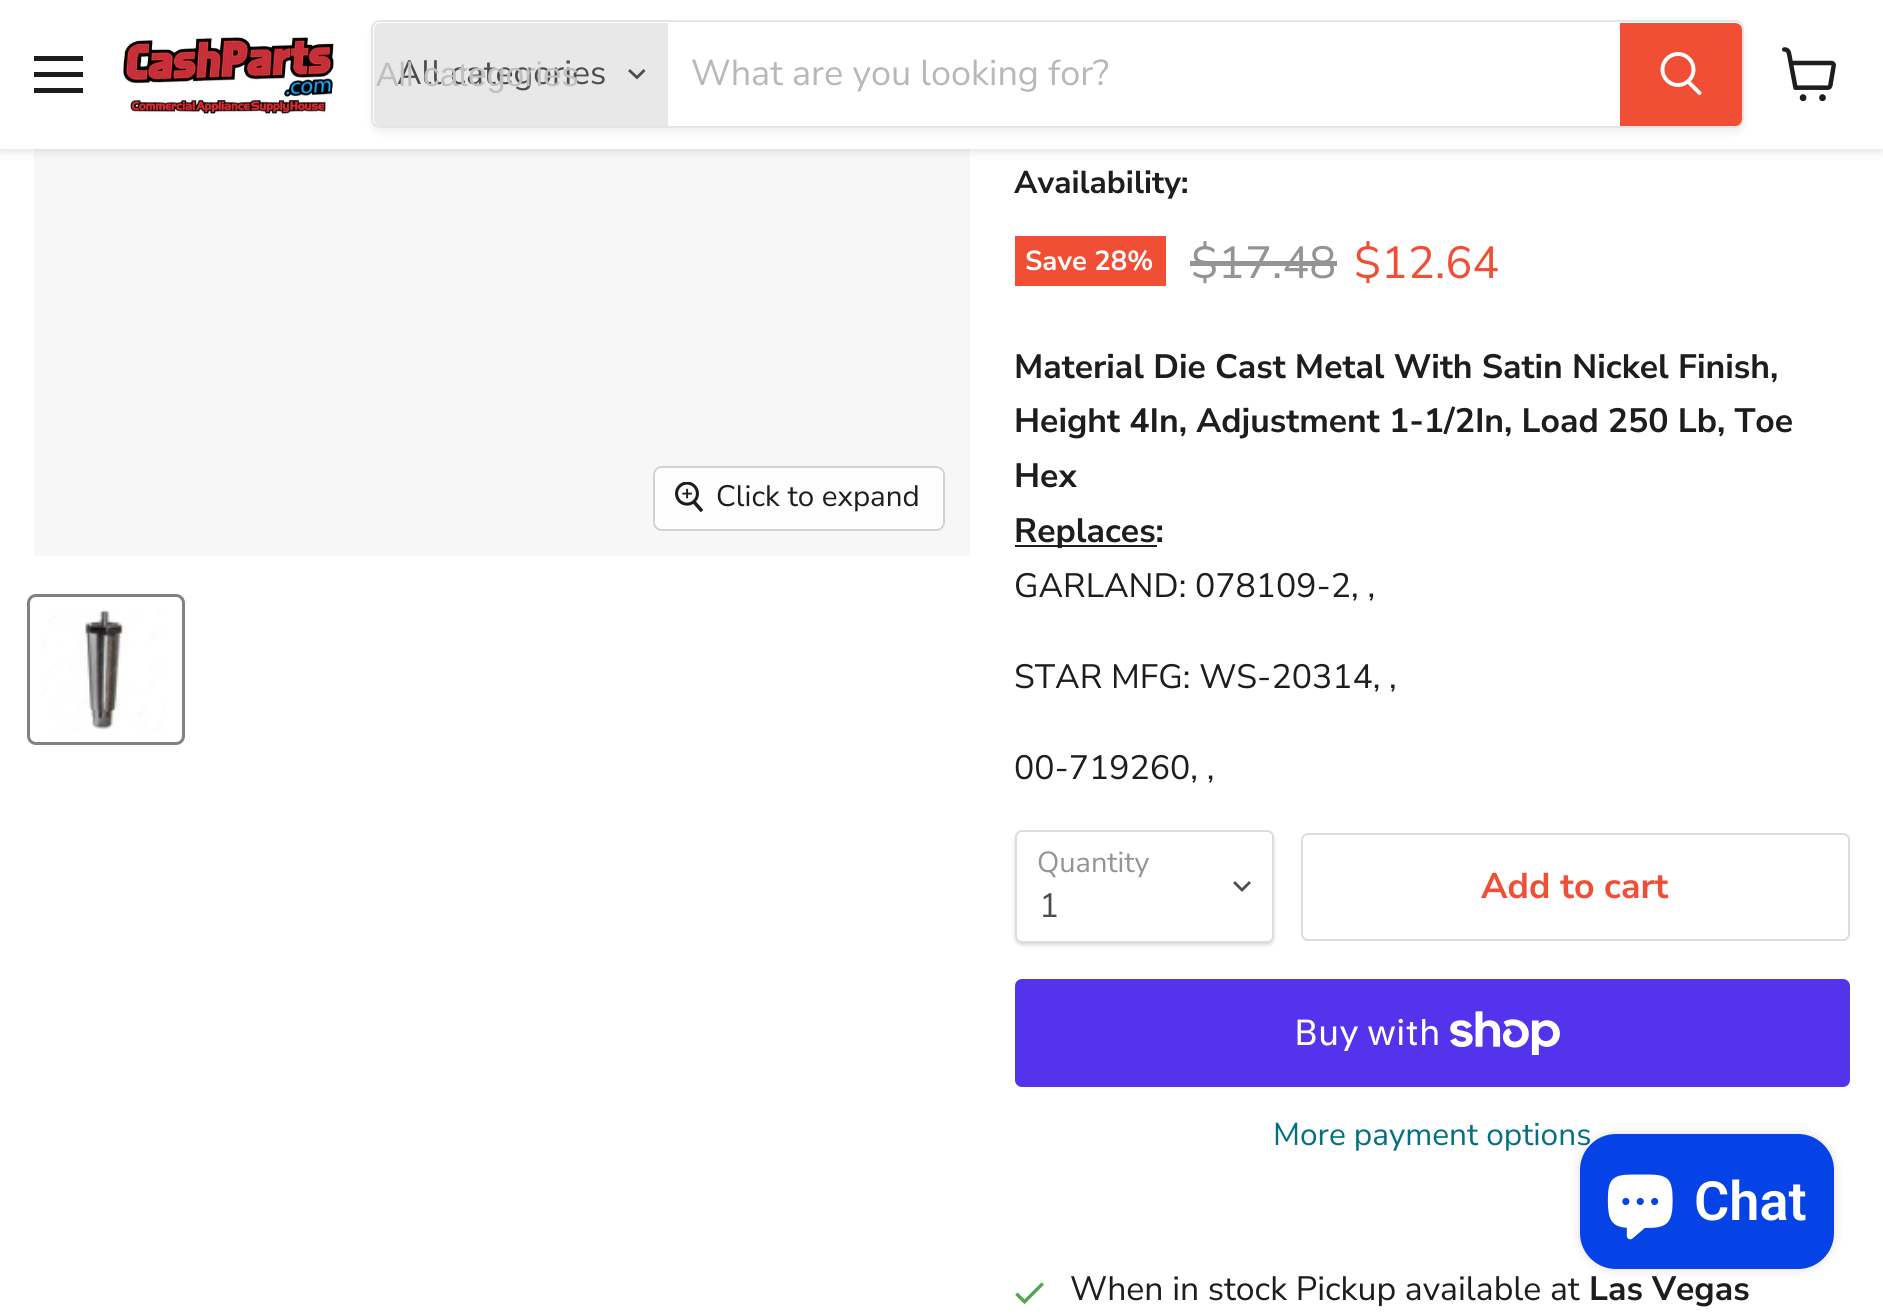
import math
import cairo

surface = cairo.ImageSurface(cairo.FORMAT_RGB24, 1883, 1316)
ctx = cairo.Context(surface)
options = cairo.FontOptions()
options.set_hint_metrics(cairo.HINT_METRICS_OFF)
options.set_hint_style(cairo.HINT_STYLE_NONE)
ctx.set_font_options(options)
ctx.set_miter_limit(4)


def round_rect(x, y, w, h, r):
    ctx.new_sub_path()
    for i, (u, v) in enumerate([(x + w - r, y + h - r), (x + r, y + h - r), (x + r, y + r), (x + w - r, y + r)]):
        ctx.arc(u, v, r, i * math.pi / 2, (i + 1) * math.pi / 2)
    ctx.close_path()


def shadow(x, y, w, h, r, blur, alpha):
    ctx.push_group_with_content(cairo.CONTENT_ALPHA)
    ctx.set_operator(cairo.OPERATOR_SOURCE)
    for i in range(15, -16, -2):
        e = blur * i / 6
        if min(w, h) + 2 * e > 0:
            ctx.set_source_rgba(0, 0, 0, alpha * math.erfc((i - 1) / 8.5) / 2)
            round_rect(x - e, y - e, w + 2 * e, h + 2 * e, max(0, min(r + e + blur * .6, min(w, h) / 2 + e)))
            ctx.fill()
    ctx.mask(ctx.pop_group())


def picture(path, x, y, w, h):
    ctx.save()
    ctx.set_source_surface(cairo.ImageSurface.create_from_png(path), x, y)
    ctx.rectangle(x, y, w, h)
    ctx.fill()
    ctx.restore()


ctx.set_source_rgb(1, 1, 1)
ctx.paint()
ctx.set_source_rgb(0.965, 0.965, 0.965)
ctx.rectangle(34, 149, 936, 407)
ctx.fill()
ctx.set_source_rgb(0.502, 0.502, 0.502)
shadow(0, 2, 1883, 149, 0, 4.5, 0.25)
ctx.set_source_rgb(1, 1, 1)
ctx.rectangle(0, 0, 1883, 149)
ctx.fill()
ctx.set_source_rgb(0.114, 0.114, 0.114)
ctx.rectangle(34, 56, 49, 5)
ctx.fill()
ctx.rectangle(34, 72, 49, 5)
ctx.fill()
ctx.rectangle(34, 88, 49, 5)
ctx.fill()
picture("img1.png", 122, 37, 213, 79)
ctx.save()
ctx.set_fill_rule(cairo.FILL_RULE_EVEN_ODD)
ctx.new_path()
ctx.move_to(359, 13)
ctx.line_to(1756, 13)
ctx.line_to(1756, 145)
ctx.line_to(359, 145)
ctx.close_path()
ctx.move_to(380, 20)
ctx.line_to(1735, 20)
ctx.curve_to(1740, 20, 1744, 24, 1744, 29)
ctx.line_to(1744, 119)
ctx.curve_to(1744, 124, 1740, 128, 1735, 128)
ctx.line_to(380, 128)
ctx.curve_to(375, 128, 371, 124, 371, 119)
ctx.line_to(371, 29)
ctx.curve_to(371, 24, 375, 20, 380, 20)
ctx.close_path()
ctx.clip()
ctx.set_source_rgb(0.502, 0.502, 0.502)
shadow(371, 25, 1373, 108, 9, 3.5, 0.11)
ctx.restore()
round_rect(372, 21, 1371, 106, 8)
ctx.set_source_rgba(0.502, 0.502, 0.502, 0.2)
ctx.stroke()
ctx.set_source_rgb(0.91, 0.91, 0.91)
ctx.new_path()
ctx.move_to(381, 23)
ctx.line_to(668, 23)
ctx.line_to(668, 126)
ctx.line_to(381, 126)
ctx.curve_to(377, 126, 374, 123, 374, 119)
ctx.line_to(374, 30)
ctx.curve_to(374, 26, 377, 23, 381, 23)
ctx.close_path()
ctx.fill()
ctx.select_font_face("Nunito Sans")
ctx.set_font_size(33.75)
ctx.set_source_rgb(0.302, 0.302, 0.302)
ctx.move_to(397, 84)
ctx.show_text("All categories")
ctx.select_font_face("Liberation Sans")
ctx.set_source_rgb(0.753, 0.753, 0.753)
ctx.move_to(376, 86)
ctx.show_text("All categories")
ctx.new_path()
ctx.move_to(637, 77.5)
ctx.line_to(643.5, 71)
ctx.move_to(637, 77.5)
ctx.line_to(630, 71)
ctx.set_source_rgb(0.302, 0.302, 0.302)
ctx.set_line_width(2.8)
ctx.set_line_cap(cairo.LINE_CAP_SQUARE)
ctx.stroke()
ctx.select_font_face("Nunito Sans")
ctx.set_font_size(36)
ctx.set_source_rgb(0.722, 0.722, 0.722)
ctx.move_to(691, 85)
ctx.show_text("What are you looking for?")
ctx.set_source_rgb(0.941, 0.31, 0.212)
ctx.new_path()
ctx.move_to(1621, 24)
ctx.line_to(1735, 24)
ctx.curve_to(1738.5, 24, 1741, 26.5, 1741, 30)
ctx.line_to(1741, 119)
ctx.curve_to(1741, 122.5, 1738.5, 125, 1735, 125)
ctx.line_to(1621, 125)
ctx.close_path()
ctx.fill_preserve()
ctx.set_line_width(2)
ctx.set_line_cap(cairo.LINE_CAP_BUTT)
ctx.stroke()
ctx.new_path()
ctx.move_to(1699.5, 93)
ctx.line_to(1688.5, 82)
ctx.set_source_rgb(1, 1, 1)
ctx.set_line_width(3.9)
ctx.set_line_cap(cairo.LINE_CAP_ROUND)
ctx.stroke()
ctx.arc(1678, 69.5, 15.5, 0, 2 * math.pi)
ctx.set_line_cap(cairo.LINE_CAP_BUTT)
ctx.stroke()
picture("img2.png", 1782, 47, 54, 54)
round_rect(654, 467, 290, 63, 8)
ctx.set_source_rgb(0.82, 0.82, 0.82)
ctx.set_line_width(2)
ctx.stroke()
ctx.set_source_rgba(1, 1, 1, 0.9)
round_rect(655, 468, 288, 61, 7)
ctx.fill()
picture("img3.png", 675, 482, 29, 31)
ctx.set_font_size(29.5)
ctx.set_source_rgb(0.114, 0.114, 0.114)
ctx.move_to(716, 506)
ctx.show_text("Click to expand")
round_rect(28.5, 595.5, 155, 148, 7.5)
ctx.set_source_rgb(0.506, 0.506, 0.506)
ctx.set_line_width(3)
ctx.stroke()
picture("img4.png", 41, 609, 125, 122)
ctx.select_font_face("Nunito Sans", cairo.FONT_SLANT_NORMAL, cairo.FONT_WEIGHT_BOLD)
ctx.set_font_size(31.6)
ctx.set_source_rgb(0.114, 0.114, 0.114)
ctx.move_to(1014, 193)
ctx.show_text("Availability:")
ctx.set_source_rgb(0.941, 0.31, 0.212)
ctx.rectangle(1015, 236, 151, 50)
ctx.fill()
ctx.set_font_size(27.5)
ctx.set_source_rgb(1, 1, 1)
ctx.move_to(1025, 270)
ctx.show_text("Save 28%")
ctx.select_font_face("Nunito Sans")
ctx.set_font_size(45)
ctx.set_source_rgb(0.58, 0.58, 0.58)
ctx.move_to(1191, 278)
ctx.show_text("$17.48")
ctx.rectangle(1190, 261, 147, 5)
ctx.fill()
ctx.set_source_rgb(0.941, 0.31, 0.212)
ctx.move_to(1354, 278)
ctx.show_text("$12.64")
ctx.select_font_face("Nunito Sans", cairo.FONT_SLANT_NORMAL, cairo.FONT_WEIGHT_BOLD)
ctx.set_font_size(33.75)
ctx.set_source_rgb(0.114, 0.114, 0.114)
ctx.move_to(1014, 378)
ctx.show_text("Material Die Cast Metal With Satin Nickel Finish,")
ctx.move_to(1014, 432)
ctx.show_text("Height 4In, Adjustment 1-1/2In, Load 250 Lb, Toe")
ctx.move_to(1014, 487)
ctx.show_text("Hex")
ctx.rectangle(1015, 545, 142, 2)
ctx.fill()
ctx.move_to(1014, 542)
ctx.show_text("Replaces:")
ctx.select_font_face("Nunito Sans")
ctx.move_to(1014, 597)
ctx.show_text("GARLAND: 078109-2, ,")
ctx.move_to(1014, 688)
ctx.show_text("STAR MFG: WS-20314, ,")
ctx.move_to(1014, 779)
ctx.show_text("00-719260, ,")
ctx.set_source_rgb(0, 0, 0)
shadow(1015, 833, 259, 112, 7, 2, 0.15)
ctx.set_source_rgb(1, 1, 1)
round_rect(1016, 831, 257, 111, 6)
ctx.fill_preserve()
ctx.set_source_rgb(0.867, 0.867, 0.867)
ctx.set_line_width(2)
ctx.stroke()
ctx.set_font_size(29)
ctx.set_source_rgb(0.58, 0.58, 0.58)
ctx.move_to(1037, 872)
ctx.show_text("Quantity")
ctx.new_path()
ctx.move_to(1242, 890)
ctx.line_to(1249, 883)
ctx.move_to(1242, 890)
ctx.line_to(1235, 883)
ctx.set_source_rgb(0.302, 0.302, 0.302)
ctx.set_line_width(2.8)
ctx.set_line_cap(cairo.LINE_CAP_SQUARE)
ctx.stroke()
ctx.set_font_size(33.75)
ctx.move_to(1039, 917)
ctx.show_text("1")
round_rect(1302, 834, 547, 106, 6)
ctx.set_source_rgb(0.867, 0.867, 0.867)
ctx.set_line_width(2)
ctx.set_line_cap(cairo.LINE_CAP_BUTT)
ctx.stroke()
ctx.select_font_face("Nunito Sans", cairo.FONT_SLANT_NORMAL, cairo.FONT_WEIGHT_BOLD)
ctx.set_font_size(35.75)
ctx.set_source_rgb(0.941, 0.31, 0.212)
ctx.move_to(1481, 898)
ctx.show_text("Add to cart")
ctx.set_source_rgb(0.329, 0.2, 0.922)
round_rect(1015, 979, 835, 108, 7)
ctx.fill()
ctx.select_font_face("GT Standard")
ctx.set_font_size(36)
ctx.set_source_rgb(1, 1, 1)
ctx.move_to(1294, 1045)
ctx.show_text("Buy with")
picture("img5.png", 1450, 1011, 110, 44)
ctx.select_font_face("Nunito Sans")
ctx.set_font_size(31.6)
ctx.set_source_rgb(0.016, 0.431, 0.51)
ctx.move_to(1273, 1145)
ctx.show_text("More payment options")
picture("img6.png", 1015, 1282, 29, 23)
ctx.set_font_size(33.75)
ctx.set_source_rgb(0.114, 0.114, 0.114)
ctx.move_to(1070, 1300)
ctx.show_text("When in stock Pickup available at")
ctx.select_font_face("Nunito Sans", cairo.FONT_SLANT_NORMAL, cairo.FONT_WEIGHT_BOLD)
ctx.move_to(1589, 1300)
ctx.show_text("Las Vegas")
ctx.set_source_rgb(0, 0, 0)
shadow(1580, 1134, 254, 135, 36, 5.5, 0.15)
ctx.set_source_rgb(0.024, 0.263, 0.906)
round_rect(1580, 1134, 254, 135, 36)
ctx.fill()
picture("img7.png", 1607, 1174, 66, 66)
ctx.select_font_face("Roboto SemiBold")
ctx.set_font_size(54)
ctx.set_source_rgb(1, 1, 1)
ctx.move_to(1694, 1220)
ctx.show_text("Chat")
surface.write_to_png("page.png")
